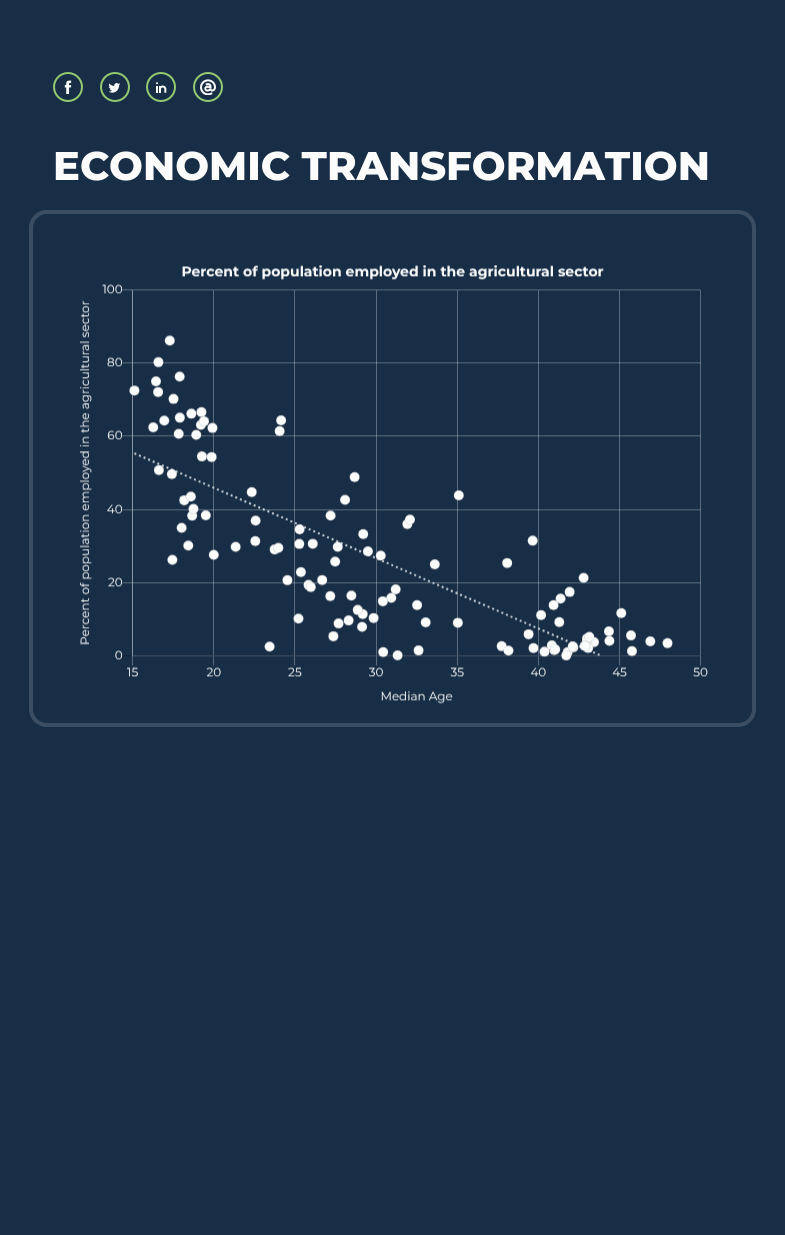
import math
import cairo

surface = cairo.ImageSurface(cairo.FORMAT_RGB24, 785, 1235)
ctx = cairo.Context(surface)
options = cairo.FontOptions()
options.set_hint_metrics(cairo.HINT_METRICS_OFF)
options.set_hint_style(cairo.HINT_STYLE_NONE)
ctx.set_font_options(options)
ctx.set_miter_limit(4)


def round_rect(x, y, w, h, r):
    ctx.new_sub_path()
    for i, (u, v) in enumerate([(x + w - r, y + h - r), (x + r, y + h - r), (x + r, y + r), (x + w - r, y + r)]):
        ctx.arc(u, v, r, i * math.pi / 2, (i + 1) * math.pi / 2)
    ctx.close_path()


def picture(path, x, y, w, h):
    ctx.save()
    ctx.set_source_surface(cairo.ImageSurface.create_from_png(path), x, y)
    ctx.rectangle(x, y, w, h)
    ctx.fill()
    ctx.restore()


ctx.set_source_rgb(0.094, 0.18, 0.278)
ctx.paint()
picture("img1.png", 64, 80, 8, 14)
ctx.arc(68, 87, 14, 0, 2 * math.pi)
ctx.set_source_rgb(0.58, 0.788, 0.439)
ctx.stroke()
picture("img2.png", 108, 83, 13, 10)
ctx.arc(115, 87, 14, 0, 2 * math.pi)
ctx.stroke()
picture("img3.png", 156, 82, 11, 11)
ctx.arc(161, 87, 14, 0, 2 * math.pi)
ctx.stroke()
picture("img4.png", 200, 79, 16, 16)
ctx.arc(208, 87, 14, 0, 2 * math.pi)
ctx.stroke()
ctx.select_font_face("Montserrat ExtraBold")
ctx.set_font_size(40)
ctx.set_source_rgb(0.988, 0.988, 0.992)
ctx.move_to(53, 180)
ctx.show_text("ECONOMIC TRANSFORMATION")
round_rect(31, 212, 723, 513, 16)
ctx.set_source_rgb(0.227, 0.302, 0.384)
ctx.set_line_width(4)
ctx.stroke()
picture("img5.png", 80, 265, 628, 439)
surface.write_to_png("page.png")
